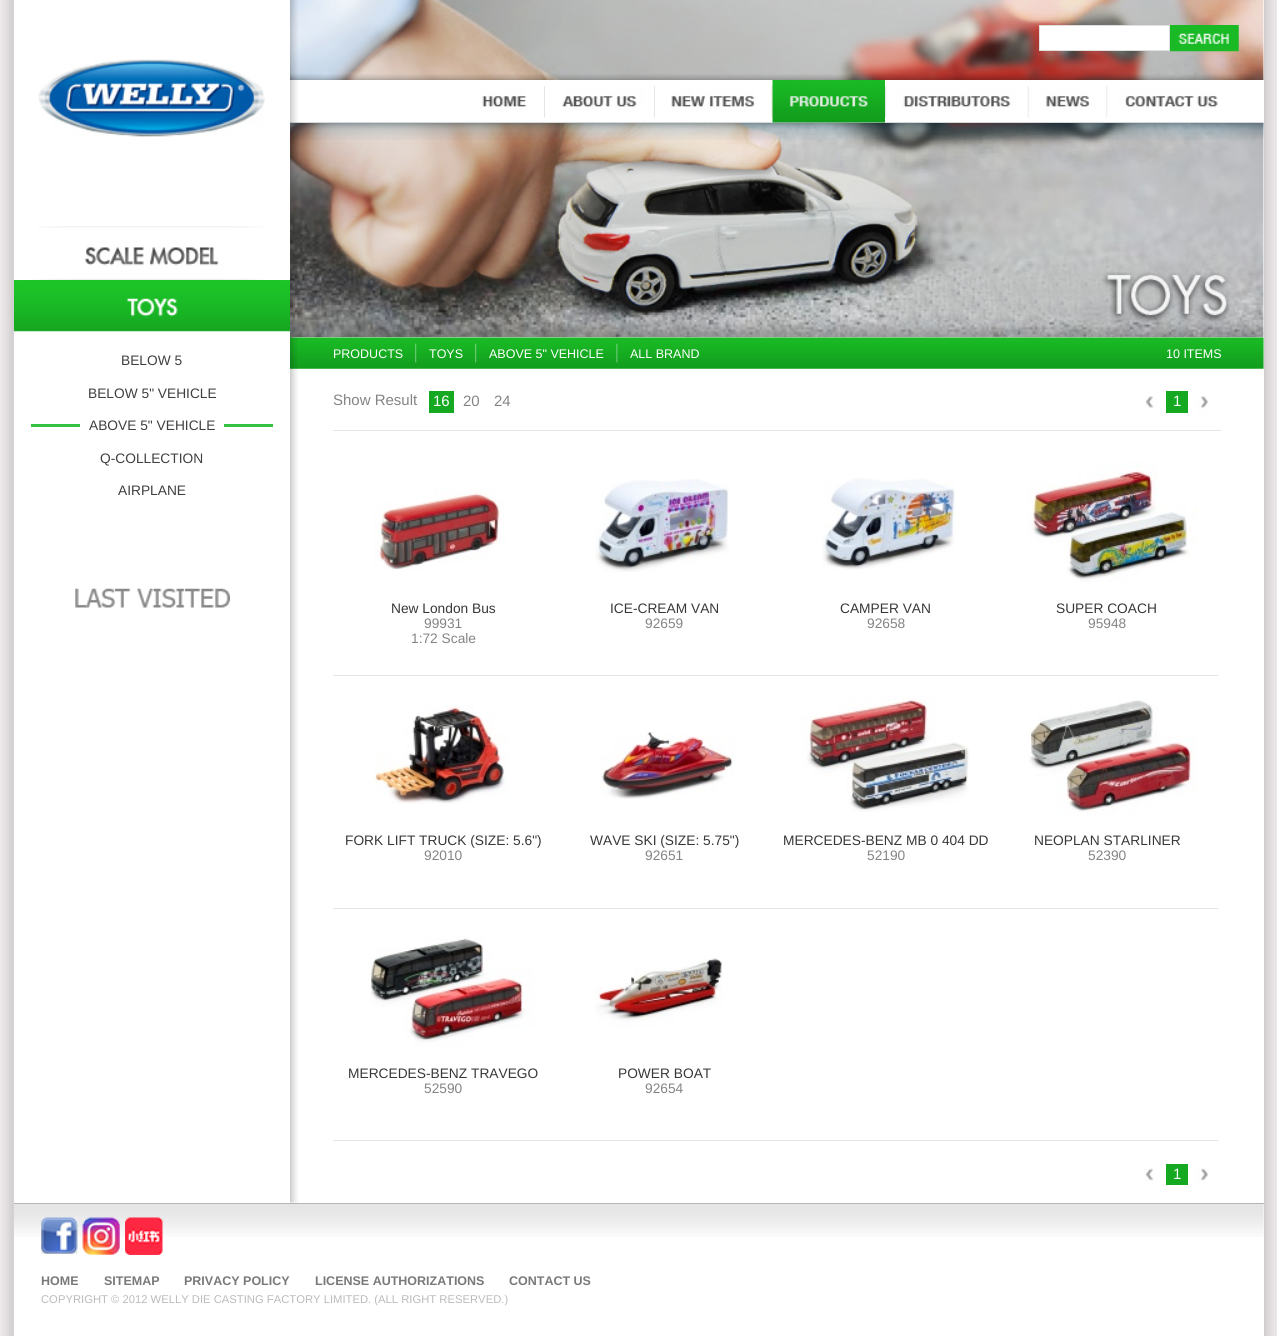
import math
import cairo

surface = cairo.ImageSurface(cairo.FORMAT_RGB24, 1277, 1336)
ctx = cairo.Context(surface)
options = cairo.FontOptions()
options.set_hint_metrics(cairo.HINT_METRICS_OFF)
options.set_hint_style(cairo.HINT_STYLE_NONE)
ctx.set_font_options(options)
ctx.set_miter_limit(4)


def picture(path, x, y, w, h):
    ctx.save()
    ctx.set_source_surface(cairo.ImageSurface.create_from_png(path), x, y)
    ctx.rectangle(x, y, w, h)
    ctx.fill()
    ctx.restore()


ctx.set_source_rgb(0.937, 0.925, 0.925)
ctx.paint()
picture("img1.png", 1, 0, 13, 1336)
ctx.set_source_rgb(1, 1, 1)
ctx.rectangle(14, 0, 1250, 1336)
ctx.fill()
picture("img2.png", 38, 59, 227, 78)
picture("img3.png", 37, 226, 226, 2)
picture("img4.png", 64, 227, 167, 39)
picture("img5.png", 32, 278, 231, 2)
picture("img6.png", 13, 280, 277, 52)
ctx.select_font_face("Liberation Sans")
ctx.set_font_size(13.75)
ctx.set_source_rgb(0.247, 0.247, 0.247)
ctx.move_to(121, 365)
ctx.show_text("BELOW 5")
ctx.move_to(88, 398)
ctx.show_text("BELOW 5\" VEHICLE")
ctx.set_source_rgb(0.204, 0.761, 0.251)
ctx.rectangle(31, 424, 242, 3)
ctx.fill()
ctx.set_source_rgb(1, 1, 1)
ctx.rectangle(80, 424, 144, 3)
ctx.fill()
ctx.set_source_rgb(0.247, 0.247, 0.247)
ctx.move_to(89, 430)
ctx.show_text("ABOVE 5\" VEHICLE")
ctx.move_to(100, 463)
ctx.show_text("Q-COLLECTION")
ctx.move_to(118, 495)
ctx.show_text("AIRPLANE")
picture("img7.png", 75, 588, 155, 20)
picture("img8.png", 290, 337, 8, 866)
picture("img9.png", 290, 0, 974, 338)
picture("img10.png", 1101, 272, 129, 51)
picture("img13.png", 290, 74, 974, 6)
ctx.set_source_rgb(1, 1, 1)
ctx.rectangle(290, 80, 974, 43)
ctx.fill()
picture("img16.png", 771, 86, 2, 32)
picture("img15.png", 772, 80, 113, 43)
picture("img25.png", 290, 122, 974, 18)
picture("img26.png", 290, 337, 974, 32)
picture("img27.png", 290, 337, 8, 32)
picture("img11.png", 290, 0, 8, 338)
ctx.rectangle(1039.5, 25.5, 130, 25)
ctx.fill_preserve()
ctx.set_source_rgb(0.875, 0.875, 0.875)
ctx.set_line_width(1)
ctx.stroke()
picture("img12.png", 1170, 25, 69, 27)
picture("img14.png", 543, 86, 2, 32)
picture("img14.png", 653, 86, 2, 32)
picture("img17.png", 885, 86, 2, 32)
picture("img19.png", 1027, 86, 2, 32)
picture("img18.png", 886, 86, 142, 31)
picture("img16.png", 1106, 86, 2, 32)
picture("img20.png", 482, 87, 62, 30)
picture("img21.png", 562, 87, 92, 30)
picture("img22.png", 671, 87, 101, 30)
picture("img23.png", 1028, 87, 79, 30)
picture("img24.png", 1107, 86, 111, 31)
ctx.set_font_size(12.5)
ctx.set_source_rgb(1, 1, 1)
ctx.move_to(333, 358)
ctx.show_text("PRODUCTS")
picture("img28.png", 415, 343, 2, 20)
ctx.move_to(429, 358)
ctx.show_text("TOYS")
picture("img28.png", 475, 343, 2, 20)
ctx.move_to(489, 358)
ctx.show_text("ABOVE 5\" VEHICLE")
picture("img29.png", 616, 343, 2, 20)
ctx.move_to(630, 358)
ctx.show_text("ALL BRAND")
ctx.move_to(1166, 358)
ctx.show_text("10 ITEMS")
ctx.set_source_rgb(0.894, 0.894, 0.894)
ctx.rectangle(333, 430, 888, 1)
ctx.fill()
ctx.set_font_size(15)
ctx.set_source_rgb(0.518, 0.518, 0.518)
ctx.move_to(333, 405)
ctx.show_text("Show Result")
ctx.set_source_rgb(0.082, 0.663, 0.125)
ctx.rectangle(429, 391, 25, 22)
ctx.fill()
ctx.set_source_rgb(1, 1, 1)
ctx.move_to(433, 406)
ctx.show_text("16")
ctx.set_source_rgb(0.518, 0.518, 0.518)
ctx.move_to(463, 406)
ctx.show_text("20")
ctx.move_to(494, 406)
ctx.show_text("24")
picture("img30.png", 1145, 396, 9, 12)
ctx.set_source_rgb(0.082, 0.663, 0.125)
ctx.rectangle(1166, 391, 22, 22)
ctx.fill()
ctx.set_source_rgb(1, 1, 1)
ctx.move_to(1173, 406)
ctx.show_text("1")
picture("img31.png", 1196, 396, 13, 17)
ctx.set_source_rgb(0.894, 0.894, 0.894)
ctx.rectangle(333, 675, 885, 1)
ctx.fill()
picture("img32.png", 374, 488, 132, 82)
ctx.set_font_size(13.75)
ctx.set_source_rgb(0.22, 0.22, 0.22)
ctx.move_to(391, 613)
ctx.show_text("New London Bus")
ctx.set_source_rgb(0.518, 0.518, 0.518)
ctx.move_to(424, 628)
ctx.show_text("99931")
ctx.move_to(411, 643)
ctx.show_text("1:72 Scale")
picture("img33.png", 595, 479, 134, 93)
ctx.set_source_rgb(0.22, 0.22, 0.22)
ctx.move_to(610, 613)
ctx.show_text("ICE-CREAM VAN")
ctx.set_source_rgb(0.518, 0.518, 0.518)
ctx.move_to(645, 628)
ctx.show_text("92659")
picture("img34.png", 822, 478, 134, 92)
ctx.set_source_rgb(0.22, 0.22, 0.22)
ctx.move_to(840, 613)
ctx.show_text("CAMPER VAN")
ctx.set_source_rgb(0.518, 0.518, 0.518)
ctx.move_to(867, 628)
ctx.show_text("92658")
picture("img35.png", 1028, 462, 169, 120)
ctx.set_source_rgb(0.22, 0.22, 0.22)
ctx.move_to(1056, 613)
ctx.show_text("SUPER COACH")
ctx.set_source_rgb(0.518, 0.518, 0.518)
ctx.move_to(1088, 628)
ctx.show_text("95948")
ctx.set_source_rgb(0.894, 0.894, 0.894)
ctx.rectangle(333, 908, 885, 1)
ctx.fill()
picture("img36.png", 374, 705, 135, 99)
ctx.set_source_rgb(0.22, 0.22, 0.22)
ctx.move_to(345, 845)
ctx.show_text("FORK LIFT TRUCK (SIZE: 5.6\")")
ctx.set_source_rgb(0.518, 0.518, 0.518)
ctx.move_to(424, 860)
ctx.show_text("92010")
picture("img37.png", 599, 732, 136, 67)
ctx.set_source_rgb(0.22, 0.22, 0.22)
ctx.move_to(590, 845)
ctx.show_text("WAVE SKI (SIZE: 5.75\")")
ctx.set_source_rgb(0.518, 0.518, 0.518)
ctx.move_to(645, 860)
ctx.show_text("92651")
picture("img38.png", 801, 695, 169, 117)
ctx.set_source_rgb(0.22, 0.22, 0.22)
ctx.move_to(783, 845)
ctx.show_text("MERCEDES-BENZ MB 0 404 DD")
ctx.set_source_rgb(0.518, 0.518, 0.518)
ctx.move_to(867, 860)
ctx.show_text("52190")
picture("img39.png", 1029, 700, 168, 115)
ctx.set_source_rgb(0.22, 0.22, 0.22)
ctx.move_to(1034, 845)
ctx.show_text("NEOPLAN STARLINER")
ctx.set_source_rgb(0.518, 0.518, 0.518)
ctx.move_to(1088, 860)
ctx.show_text("52390")
ctx.set_source_rgb(0.894, 0.894, 0.894)
ctx.rectangle(333, 1140, 885, 1)
ctx.fill()
picture("img40.png", 370, 938, 164, 109)
ctx.set_source_rgb(0.22, 0.22, 0.22)
ctx.move_to(348, 1078)
ctx.show_text("MERCEDES-BENZ TRAVEGO")
ctx.set_source_rgb(0.518, 0.518, 0.518)
ctx.move_to(424, 1093)
ctx.show_text("52590")
picture("img41.png", 595, 958, 128, 69)
ctx.set_source_rgb(0.22, 0.22, 0.22)
ctx.move_to(618, 1078)
ctx.show_text("POWER BOAT")
ctx.set_source_rgb(0.518, 0.518, 0.518)
ctx.move_to(645, 1093)
ctx.show_text("92654")
picture("img42.png", 1144, 1168, 10, 17)
ctx.set_source_rgb(0.082, 0.663, 0.125)
ctx.rectangle(1166, 1164, 22, 21)
ctx.fill()
ctx.set_font_size(15)
ctx.set_source_rgb(1, 1, 1)
ctx.move_to(1173, 1179)
ctx.show_text("1")
picture("img43.png", 1196, 1168, 13, 17)
picture("img44.png", 14, 1204, 1250, 33)
ctx.set_source_rgb(0.71, 0.71, 0.71)
ctx.rectangle(14, 1203, 1250, 1)
ctx.fill()
picture("img45.png", 41, 1217, 37, 37)
picture("img46.png", 82, 1217, 38, 38)
picture("img47.png", 125, 1217, 38, 38)
ctx.select_font_face("Liberation Sans", cairo.FONT_SLANT_NORMAL, cairo.FONT_WEIGHT_BOLD)
ctx.set_font_size(12.5)
ctx.set_source_rgb(0.475, 0.475, 0.475)
ctx.move_to(41, 1285)
ctx.show_text("HOME")
ctx.move_to(104, 1285)
ctx.show_text("SITEMAP")
ctx.move_to(184, 1285)
ctx.show_text("PRIVACY POLICY")
ctx.move_to(315, 1285)
ctx.show_text("LICENSE AUTHORIZATIONS")
ctx.move_to(509, 1285)
ctx.show_text("CONTACT US")
ctx.select_font_face("Liberation Sans")
ctx.set_font_size(11.25)
ctx.set_source_rgb(0.733, 0.733, 0.733)
ctx.move_to(41, 1303)
ctx.show_text("COPYRIGHT © 2012 WELLY DIE CASTING FACTORY LIMITED. (ALL RIGHT RESERVED.)")
picture("img48.png", 1264, 0, 13, 1336)
surface.write_to_png("page.png")
